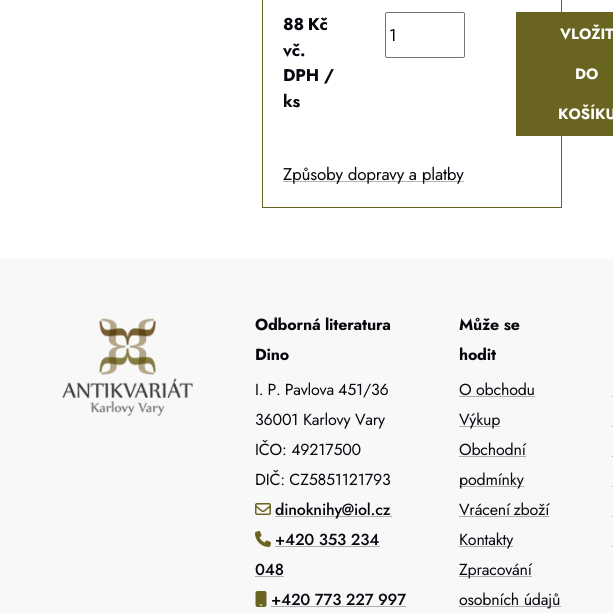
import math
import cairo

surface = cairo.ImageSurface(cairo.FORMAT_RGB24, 613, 613)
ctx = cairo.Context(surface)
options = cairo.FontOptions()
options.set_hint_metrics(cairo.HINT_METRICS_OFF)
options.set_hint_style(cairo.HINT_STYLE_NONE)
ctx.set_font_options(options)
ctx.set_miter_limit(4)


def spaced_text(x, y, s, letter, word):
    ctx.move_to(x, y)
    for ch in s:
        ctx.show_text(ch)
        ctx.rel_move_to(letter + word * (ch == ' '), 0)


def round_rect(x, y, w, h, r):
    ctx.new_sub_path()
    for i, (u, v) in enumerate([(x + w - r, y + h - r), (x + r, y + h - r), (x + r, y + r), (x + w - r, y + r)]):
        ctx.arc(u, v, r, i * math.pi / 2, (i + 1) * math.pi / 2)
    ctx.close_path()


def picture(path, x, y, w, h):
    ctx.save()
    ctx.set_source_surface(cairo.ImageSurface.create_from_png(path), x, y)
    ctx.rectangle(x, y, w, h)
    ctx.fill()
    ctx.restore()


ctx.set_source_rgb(1, 1, 1)
ctx.paint()
ctx.rectangle(262.5, -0.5, 299, 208)
ctx.set_source_rgb(0.416, 0.392, 0.129)
ctx.set_line_width(1)
ctx.stroke()
ctx.select_font_face("Jost", cairo.FONT_SLANT_NORMAL, cairo.FONT_WEIGHT_BOLD)
ctx.set_font_size(17)
ctx.set_source_rgb(0.031, 0.035, 0.059)
spaced_text(283, 30, "88 Kč", -0.2, -1)
spaced_text(283, 56, "vč.", -0.2, 0)
spaced_text(283, 81, "DPH /", -0.2, 0)
spaced_text(283, 107, "ks", -0.2, 0)
round_rect(385.5, 12.5, 79, 45, 1.5)
ctx.set_source_rgb(0.463, 0.463, 0.463)
ctx.stroke()
ctx.select_font_face("Jost")
ctx.set_source_rgb(0, 0, 0)
ctx.move_to(389, 41)
ctx.show_text("1")
ctx.set_source_rgb(0.416, 0.392, 0.129)
ctx.rectangle(516, 12, 97, 124)
ctx.fill()
ctx.select_font_face("Jost", cairo.FONT_SLANT_NORMAL, cairo.FONT_WEIGHT_BOLD)
ctx.set_font_size(15)
ctx.set_source_rgb(1, 1, 1)
ctx.move_to(560, 39)
ctx.show_text("VLOŽIT")
ctx.move_to(575, 79)
ctx.show_text("DO")
ctx.move_to(558, 119)
ctx.show_text("KOŠÍKU")
ctx.set_source_rgb(0.702, 0.702, 0.702)
ctx.rectangle(283, 181, 181, 1)
ctx.fill()
ctx.select_font_face("Jost")
ctx.set_font_size(17)
ctx.set_source_rgb(0.031, 0.035, 0.059)
spaced_text(283, 180, "Způsoby dopravy a platby", -0.2, 0)
ctx.set_source_rgb(0.969, 0.969, 0.969)
ctx.rectangle(0, 259, 613, 354)
ctx.fill()
picture("img1.png", 62, 318, 131, 98)
ctx.select_font_face("Jost", cairo.FONT_SLANT_NORMAL, cairo.FONT_WEIGHT_BOLD)
ctx.set_font_size(16)
ctx.set_source_rgb(0.031, 0.035, 0.059)
spaced_text(255, 330, "Odborná literatura", -0.2, 0)
spaced_text(255, 360, "Dino", -0.2, 0)
ctx.select_font_face("Jost")
spaced_text(255, 395, "I. P. Pavlova 451/36", -0.2, -0.5)
spaced_text(255, 425, "36001 Karlovy Vary", -0.2, 0)
spaced_text(255, 455, "IČO: 49217500", -0.2, 0)
spaced_text(255, 485, "DIČ: CZ5851121793", -0.2, 0)
picture("img2.png", 255, 503, 16, 12)
ctx.set_source_rgb(0.678, 0.678, 0.678)
ctx.rectangle(275, 516, 117, 1)
ctx.fill()
ctx.select_font_face("Jost Medium")
ctx.set_source_rgb(0.031, 0.035, 0.059)
spaced_text(275, 515, "dinoknihy@iol.cz", -0.2, 0)
picture("img3.png", 255, 531, 16, 16)
spaced_text(275, 545, "+420 353 234", -0.2, 0)
ctx.set_source_rgb(0.678, 0.678, 0.678)
ctx.rectangle(275, 546, 105, 1)
ctx.fill()
ctx.set_source_rgb(0.031, 0.035, 0.059)
spaced_text(255, 575, "048", -0.2, 0)
ctx.set_source_rgb(0.678, 0.678, 0.678)
ctx.rectangle(255, 576, 29, 1)
ctx.fill()
picture("img4.png", 255, 591, 12, 16)
ctx.set_source_rgb(0.031, 0.035, 0.059)
spaced_text(271, 605, "+420 773 227 997", -0.2, 0)
ctx.set_source_rgb(0.678, 0.678, 0.678)
ctx.rectangle(271, 606, 135, 1)
ctx.fill()
ctx.select_font_face("Jost", cairo.FONT_SLANT_NORMAL, cairo.FONT_WEIGHT_BOLD)
ctx.set_source_rgb(0.031, 0.035, 0.059)
spaced_text(459, 330, "Může se", -0.2, 0)
spaced_text(459, 360, "hodit", -0.2, 0)
ctx.select_font_face("Jost")
spaced_text(459, 395, "O obchodu", -0.2, 0)
ctx.set_source_rgb(0.678, 0.678, 0.678)
ctx.rectangle(459, 396, 76, 1)
ctx.fill()
ctx.rectangle(459, 426, 41, 1)
ctx.fill()
ctx.set_source_rgb(0.031, 0.035, 0.059)
spaced_text(459, 425, "Výkup", -0.2, 0)
spaced_text(459, 455, "Obchodní", -0.2, 0)
ctx.set_source_rgb(0.678, 0.678, 0.678)
ctx.rectangle(459, 456, 67, 1)
ctx.fill()
ctx.rectangle(459, 486, 65, 1)
ctx.fill()
ctx.set_source_rgb(0.031, 0.035, 0.059)
spaced_text(459, 485, "podmínky", -0.2, 0)
spaced_text(459, 515, "Vrácení zboží", -0.2, -1)
ctx.set_source_rgb(0.678, 0.678, 0.678)
ctx.rectangle(459, 516, 90, 1)
ctx.fill()
ctx.rectangle(459, 546, 54, 1)
ctx.fill()
ctx.set_source_rgb(0.031, 0.035, 0.059)
spaced_text(459, 545, "Kontakty", -0.2, 0)
ctx.set_source_rgb(0.678, 0.678, 0.678)
ctx.rectangle(459, 576, 73, 1)
ctx.fill()
ctx.set_source_rgb(0.031, 0.035, 0.059)
spaced_text(459, 575, "Zpracování", -0.2, 0)
ctx.set_source_rgb(0.678, 0.678, 0.678)
ctx.rectangle(459, 606, 102, 1)
ctx.fill()
ctx.set_source_rgb(0.031, 0.035, 0.059)
spaced_text(459, 605, "osobních údajů", -0.2, 0)
ctx.set_source_rgb(0.678, 0.678, 0.678)
ctx.rectangle(612, 396, 1, 1)
ctx.fill()
ctx.rectangle(612, 426, 1, 1)
ctx.fill()
ctx.rectangle(612, 456, 1, 1)
ctx.fill()
ctx.rectangle(612, 486, 1, 1)
ctx.fill()
ctx.rectangle(612, 516, 1, 1)
ctx.fill()
ctx.rectangle(612, 546, 1, 1)
ctx.fill()
surface.write_to_png("page.png")
